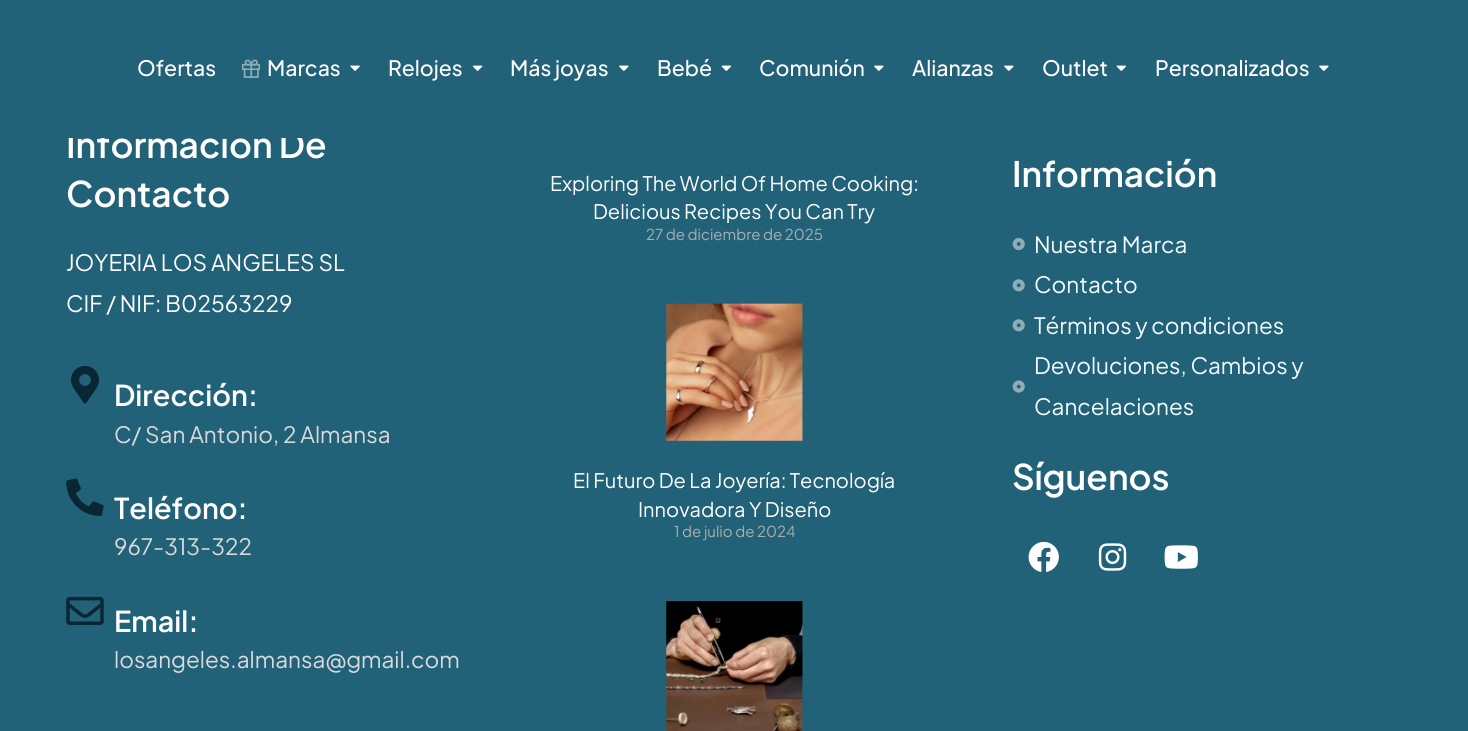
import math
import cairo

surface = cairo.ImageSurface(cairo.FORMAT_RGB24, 1468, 731)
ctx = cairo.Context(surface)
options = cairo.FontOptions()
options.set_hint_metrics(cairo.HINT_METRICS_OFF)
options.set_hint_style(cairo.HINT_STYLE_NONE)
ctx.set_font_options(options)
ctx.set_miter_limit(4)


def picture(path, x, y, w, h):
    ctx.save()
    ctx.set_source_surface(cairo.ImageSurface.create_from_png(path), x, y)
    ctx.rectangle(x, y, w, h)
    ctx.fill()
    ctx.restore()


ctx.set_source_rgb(0.133, 0.384, 0.475)
ctx.paint()
ctx.select_font_face("Plus Jakarta Sans SemiBold")
ctx.set_font_size(35.25)
ctx.set_source_rgb(1, 1, 1)
ctx.move_to(66, 158)
ctx.show_text("Información De")
ctx.set_source_rgb(0.133, 0.384, 0.475)
ctx.rectangle(68, 129, 234, 9)
ctx.fill()
ctx.select_font_face("Plus Jakarta Sans Medium")
ctx.set_font_size(21.25)
ctx.set_source_rgb(1, 1, 1)
ctx.move_to(137, 76)
ctx.show_text("Ofertas")
picture("img1.png", 242, 59, 18, 19)
ctx.move_to(267, 76)
ctx.show_text("Marcas")
picture("img2.png", 350, 65, 10, 6)
ctx.move_to(388, 76)
ctx.show_text("Relojes")
picture("img3.png", 472, 65, 11, 6)
ctx.move_to(510, 76)
ctx.show_text("Más joyas")
picture("img4.png", 619, 65, 10, 6)
ctx.move_to(657, 76)
ctx.show_text("Bebé")
picture("img5.png", 721, 65, 10, 6)
ctx.move_to(759, 76)
ctx.show_text("Comunión")
picture("img4.png", 874, 65, 10, 6)
ctx.move_to(912, 76)
ctx.show_text("Alianzas")
picture("img4.png", 1004, 65, 10, 6)
ctx.move_to(1042, 76)
ctx.show_text("Outlet")
picture("img5.png", 1116, 65, 10, 6)
ctx.move_to(1155, 76)
ctx.show_text("Personalizados")
picture("img4.png", 1319, 65, 10, 6)
ctx.select_font_face("Plus Jakarta Sans SemiBold")
ctx.set_font_size(35.25)
ctx.move_to(66, 207)
ctx.show_text("Contacto")
ctx.select_font_face("Plus Jakarta Sans")
ctx.set_font_size(22.5)
ctx.move_to(66, 271)
ctx.show_text("JOYERIA LOS ANGELES SL")
ctx.move_to(66, 312)
ctx.show_text("CIF / NIF: B02563229")
picture("img6.png", 71, 366, 28, 38)
ctx.select_font_face("Plus Jakarta Sans SemiBold")
ctx.set_font_size(28.75)
ctx.move_to(114, 406)
ctx.show_text("Dirección:")
ctx.select_font_face("Plus Jakarta Sans")
ctx.set_font_size(22.5)
ctx.set_source_rgb(0.855, 0.855, 0.855)
ctx.move_to(114, 443)
ctx.show_text("C/ San Antonio, 2 Almansa")
picture("img7.png", 66, 478, 38, 38)
ctx.select_font_face("Plus Jakarta Sans SemiBold")
ctx.set_font_size(28.75)
ctx.set_source_rgb(1, 1, 1)
ctx.move_to(114, 519)
ctx.show_text("Teléfono:")
ctx.select_font_face("Plus Jakarta Sans")
ctx.set_font_size(22.5)
ctx.set_source_rgb(0.855, 0.855, 0.855)
ctx.move_to(114, 555)
ctx.show_text("967-313-322")
picture("img8.png", 66, 596, 38, 29)
ctx.select_font_face("Plus Jakarta Sans SemiBold")
ctx.set_font_size(28.75)
ctx.set_source_rgb(1, 1, 1)
ctx.move_to(114, 632)
ctx.show_text("Email:")
ctx.select_font_face("Plus Jakarta Sans")
ctx.set_font_size(22.5)
ctx.set_source_rgb(0.855, 0.855, 0.855)
ctx.move_to(114, 668)
ctx.show_text("losangeles.almansa@gmail.com")
ctx.set_font_size(20)
ctx.set_source_rgb(1, 1, 1)
ctx.move_to(550, 191)
ctx.show_text("Exploring The World Of Home Cooking:")
ctx.move_to(593, 219)
ctx.show_text("Delicious Recipes You Can Try")
ctx.set_font_size(15)
ctx.set_source_rgb(0.678, 0.678, 0.678)
ctx.move_to(646, 240)
ctx.show_text("27 de diciembre de 2025")
picture("img9.png", 666, 303, 137, 138)
ctx.set_font_size(20)
ctx.set_source_rgb(1, 1, 1)
ctx.move_to(573, 488)
ctx.show_text("El Futuro De La Joyería: Tecnología")
ctx.move_to(638, 517)
ctx.show_text("Innovadora Y Diseño")
ctx.set_font_size(15)
ctx.set_source_rgb(0.678, 0.678, 0.678)
ctx.move_to(674, 537)
ctx.show_text("1 de julio de 2024")
picture("img10.png", 666, 601, 137, 130)
ctx.select_font_face("Plus Jakarta Sans SemiBold")
ctx.set_font_size(35)
ctx.set_source_rgb(1, 1, 1)
ctx.move_to(1012, 187)
ctx.show_text("Información")
picture("img11.png", 1012, 238, 13, 13)
ctx.select_font_face("Plus Jakarta Sans")
ctx.set_font_size(22.5)
ctx.set_source_rgb(0.949, 0.988, 1)
ctx.move_to(1034, 253)
ctx.show_text("Nuestra Marca")
picture("img12.png", 1012, 279, 13, 13)
ctx.move_to(1034, 293)
ctx.show_text("Contacto")
picture("img12.png", 1012, 319, 13, 13)
ctx.move_to(1034, 334)
ctx.show_text("Términos y condiciones")
picture("img13.png", 1012, 380, 13, 13)
ctx.move_to(1034, 374)
ctx.show_text("Devoluciones, Cambios y")
ctx.move_to(1034, 415)
ctx.show_text("Cancelaciones")
ctx.select_font_face("Plus Jakarta Sans SemiBold")
ctx.set_font_size(35.25)
ctx.set_source_rgb(1, 1, 1)
ctx.move_to(1012, 490)
ctx.show_text("Síguenos")
picture("img14.png", 1028, 541, 31, 31)
picture("img15.png", 1098, 543, 29, 28)
picture("img16.png", 1164, 545, 34, 24)
surface.write_to_png("page.png")
